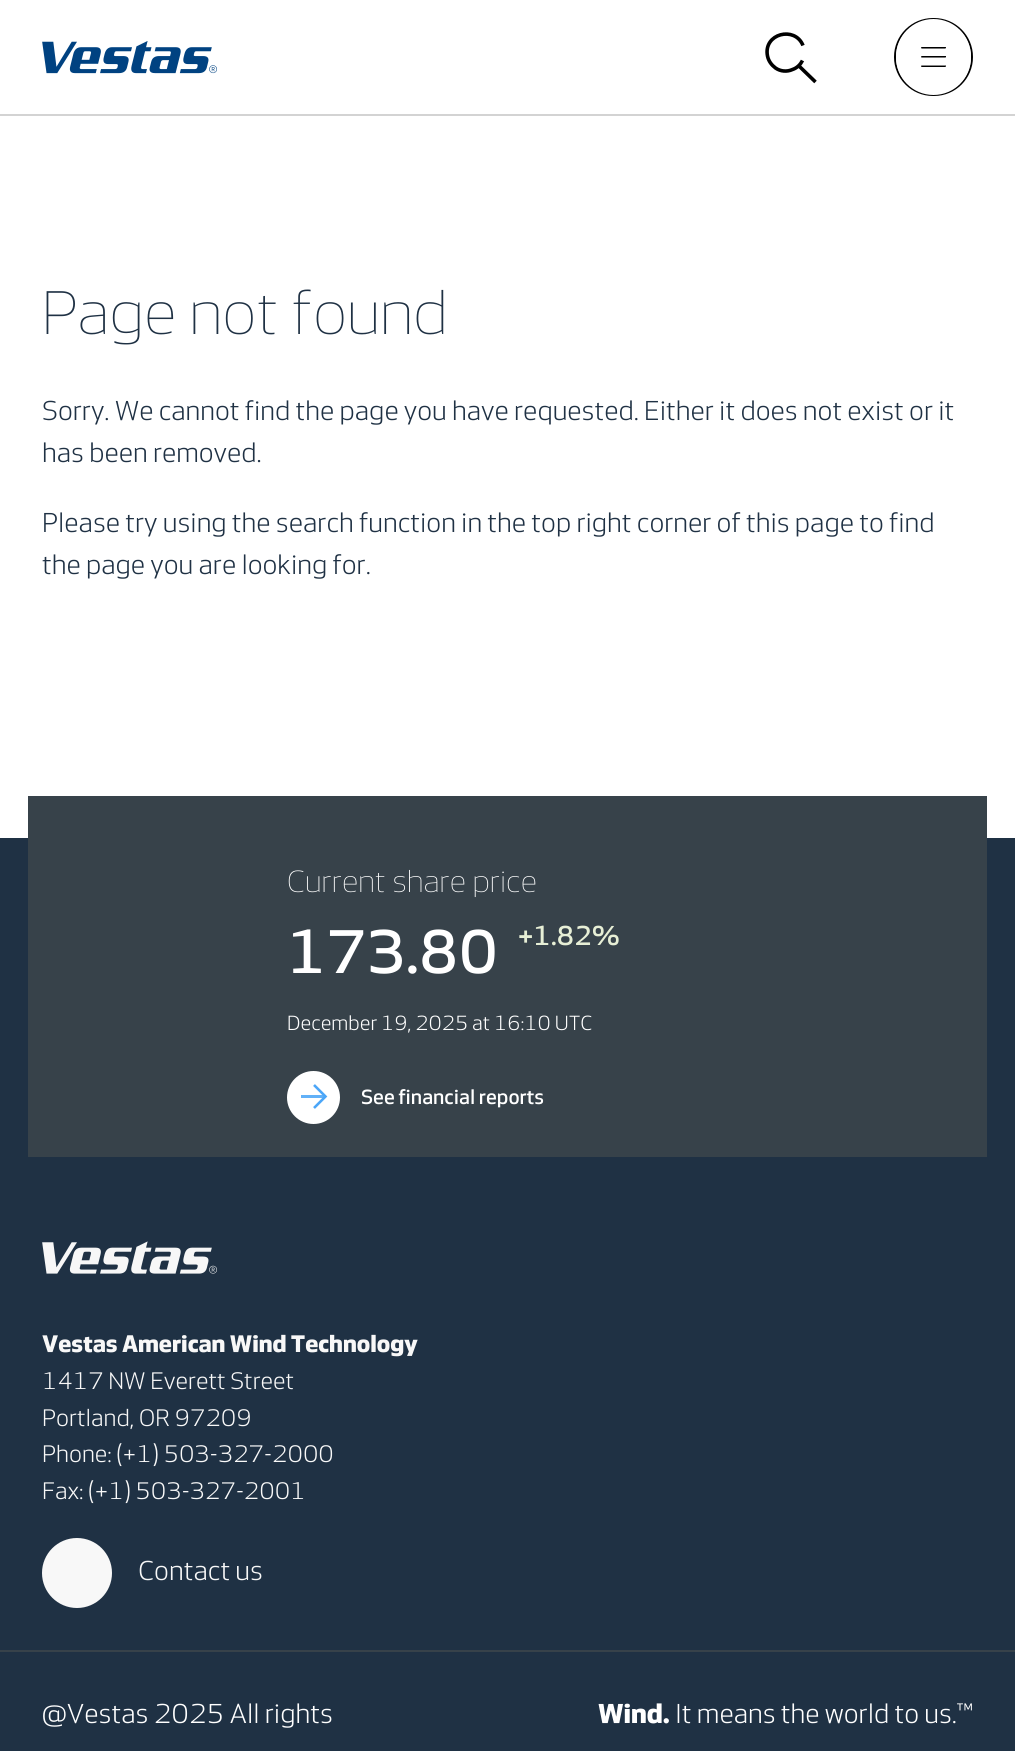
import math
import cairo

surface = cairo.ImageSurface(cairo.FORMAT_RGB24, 1015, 1751)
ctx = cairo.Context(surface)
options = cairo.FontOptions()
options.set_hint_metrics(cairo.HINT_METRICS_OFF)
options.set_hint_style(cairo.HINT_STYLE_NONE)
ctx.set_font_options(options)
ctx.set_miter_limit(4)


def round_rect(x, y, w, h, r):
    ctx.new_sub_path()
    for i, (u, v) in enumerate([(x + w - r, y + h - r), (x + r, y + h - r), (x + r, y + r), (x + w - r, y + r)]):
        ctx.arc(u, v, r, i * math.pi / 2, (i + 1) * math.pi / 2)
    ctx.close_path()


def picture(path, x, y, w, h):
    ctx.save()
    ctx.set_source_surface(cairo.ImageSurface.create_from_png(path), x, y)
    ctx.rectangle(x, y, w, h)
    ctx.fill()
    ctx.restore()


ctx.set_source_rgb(1, 1, 1)
ctx.paint()
picture("img1.png", 42, 41, 175, 33)
ctx.new_path()
ctx.move_to(799, 66)
ctx.line_to(815.5, 82)
ctx.move_to(802.5, 60.5)
ctx.curve_to(800.5, 64.5, 797, 68, 792.5, 69.5)
ctx.curve_to(787, 72, 780.5, 71.5, 775.5, 68)
ctx.curve_to(771.5, 65, 768.5, 61, 767.5, 56)
ctx.curve_to(763, 33.5, 795, 25.5, 803, 45.5)
ctx.set_source_rgb(0, 0, 0)
ctx.set_line_width(3.6)
ctx.stroke()
round_rect(895, 19, 77, 76, 38)
ctx.set_line_width(2)
ctx.stroke()
ctx.set_source_rgb(1, 1, 1)
round_rect(896, 19, 75, 76, 37.5)
ctx.fill()
ctx.set_source_rgb(0, 0, 0)
ctx.set_fill_rule(cairo.FILL_RULE_EVEN_ODD)
ctx.new_path()
ctx.move_to(921, 47.5)
ctx.line_to(921.5, 47)
ctx.line_to(946, 47)
ctx.line_to(946, 47.5)
ctx.line_to(945.5, 48.5)
ctx.line_to(921.5, 48.5)
ctx.close_path()
ctx.move_to(921, 57)
ctx.line_to(921.5, 56)
ctx.line_to(946, 56)
ctx.line_to(946, 57)
ctx.line_to(945.5, 57.5)
ctx.line_to(921.5, 57.5)
ctx.close_path()
ctx.move_to(921, 66)
ctx.line_to(921.5, 65.5)
ctx.line_to(946, 65.5)
ctx.line_to(946, 66)
ctx.line_to(945.5, 67)
ctx.line_to(921.5, 67)
ctx.close_path()
ctx.fill()
ctx.set_source_rgb(0.827, 0.827, 0.827)
ctx.rectangle(0, 114, 1015, 2)
ctx.fill()
ctx.select_font_face("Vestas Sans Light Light")
ctx.set_font_size(63)
ctx.set_source_rgb(0.122, 0.192, 0.267)
ctx.move_to(42, 334)
ctx.show_text("Page not found")
ctx.select_font_face("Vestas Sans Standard")
ctx.set_font_size(28)
ctx.move_to(42, 420)
ctx.show_text("Sorry. We cannot find the page you have requested. Either it does not exist or it")
ctx.move_to(42, 462)
ctx.show_text("has been removed.")
ctx.move_to(42, 532)
ctx.show_text("Please try using the search function in the top right corner of this page to find")
ctx.move_to(42, 574)
ctx.show_text("the page you are looking for.")
ctx.rectangle(0, 838, 1015, 913)
ctx.fill()
ctx.set_source_rgb(0.216, 0.259, 0.29)
ctx.rectangle(28, 796, 959, 361)
ctx.fill()
ctx.select_font_face("Vestas Sans Light Light")
ctx.set_font_size(31.5)
ctx.set_source_rgb(1, 1, 1)
ctx.move_to(287, 892)
ctx.show_text("Current share price")
ctx.select_font_face("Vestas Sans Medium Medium")
ctx.set_font_size(63)
ctx.move_to(287, 973)
ctx.show_text("173.80")
ctx.set_font_size(28)
ctx.set_source_rgb(0.906, 0.937, 0.839)
ctx.move_to(518, 945)
ctx.show_text("+1.82%")
ctx.select_font_face("Vestas Sans Standard")
ctx.set_font_size(21)
ctx.set_source_rgb(1, 1, 1)
ctx.move_to(287, 1030)
ctx.show_text("December 19, 2025 at 16:10 UTC")
ctx.new_path()
ctx.arc(313.5, 1097.5, 25.5, 0, 2 * math.pi)
ctx.fill_preserve()
ctx.stroke()
ctx.new_path()
ctx.move_to(314, 1085)
ctx.line_to(325.5, 1096.5)
ctx.line_to(314, 1108)
ctx.set_source_rgb(0.294, 0.651, 0.969)
ctx.set_line_width(2.6)
ctx.stroke()
ctx.set_source_rgba(0.294, 0.651, 0.969, 0.87)
ctx.rectangle(301, 1095, 25, 3)
ctx.fill()
ctx.select_font_face("Vestas Sans Medium Medium")
ctx.set_source_rgb(1, 1, 1)
ctx.move_to(361, 1104)
ctx.show_text("See financial reports")
picture("img2.png", 42, 1241, 175, 33)
ctx.select_font_face("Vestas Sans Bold", cairo.FONT_SLANT_NORMAL, cairo.FONT_WEIGHT_BOLD)
ctx.set_font_size(24.5)
ctx.set_source_rgb(0.969, 0.969, 0.969)
ctx.move_to(42, 1352)
ctx.show_text("Vestas American Wind Technology")
ctx.select_font_face("Vestas Sans Standard")
ctx.move_to(42, 1389)
ctx.show_text("1417 NW Everett Street")
ctx.move_to(42, 1426)
ctx.show_text("Portland, OR 97209")
ctx.move_to(42, 1462)
ctx.show_text("Phone: (+1) 503-327-2000")
ctx.move_to(42, 1499)
ctx.show_text("Fax: (+1) 503-327-2001")
ctx.new_path()
ctx.arc(77, 1573, 34, 0, 2 * math.pi)
ctx.fill_preserve()
ctx.set_line_width(2)
ctx.stroke()
ctx.set_font_size(28)
ctx.move_to(138, 1580)
ctx.show_text("Contact us")
ctx.set_source_rgb(0.216, 0.259, 0.29)
ctx.rectangle(0, 1650, 1015, 2)
ctx.fill()
ctx.set_source_rgb(1, 1, 1)
ctx.move_to(42, 1723)
ctx.show_text("@Vestas 2025 All rights")
ctx.select_font_face("Vestas Sans Bold", cairo.FONT_SLANT_NORMAL, cairo.FONT_WEIGHT_BOLD)
ctx.move_to(598, 1723)
ctx.show_text("Wind.")
ctx.select_font_face("Vestas Sans Standard")
ctx.move_to(675, 1723)
ctx.show_text("It means the world to us.™")
surface.write_to_png("page.png")
